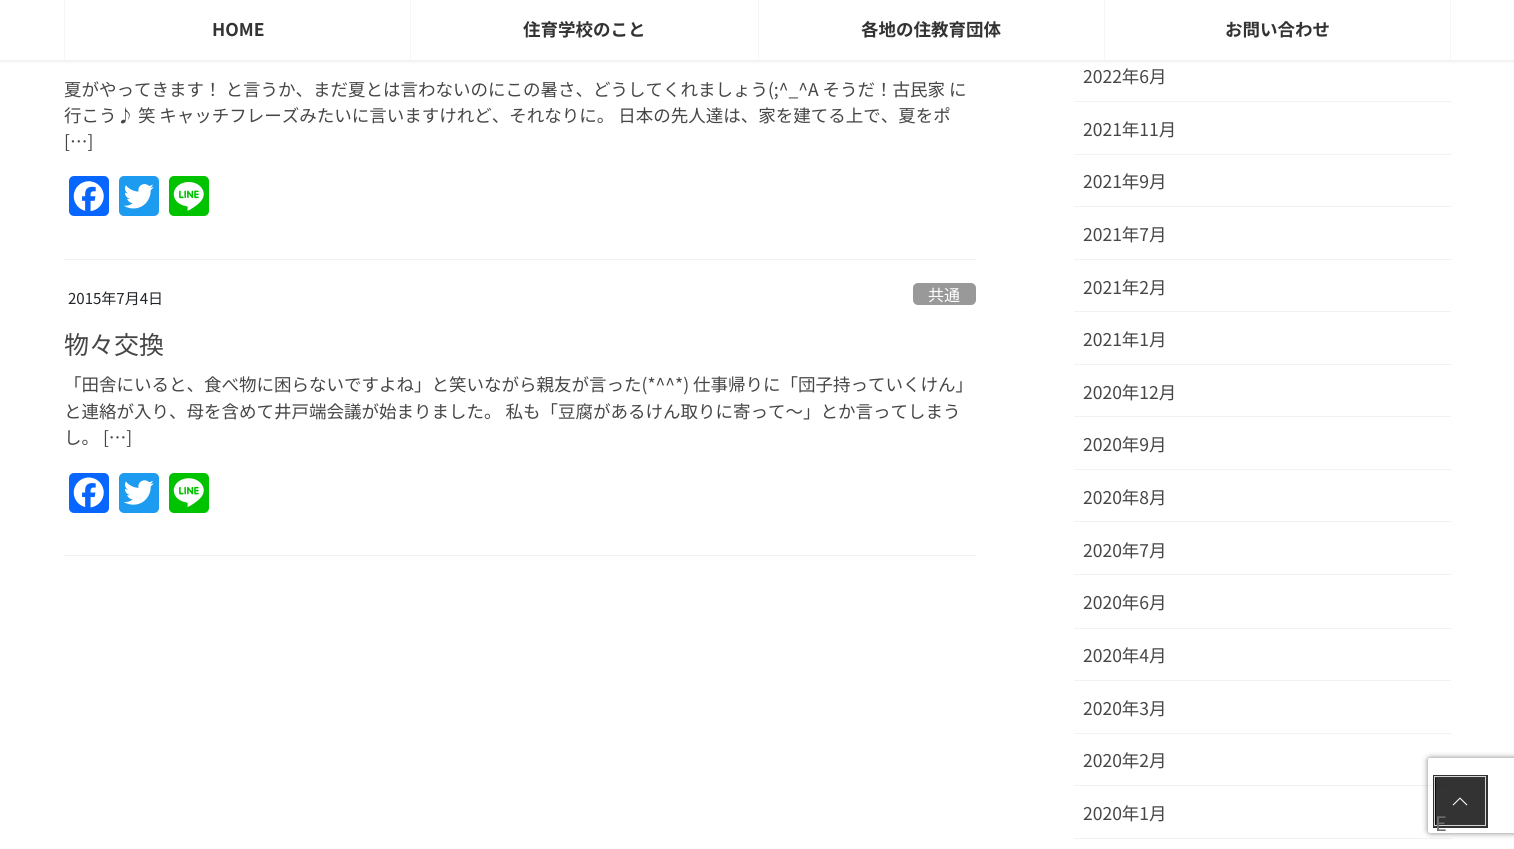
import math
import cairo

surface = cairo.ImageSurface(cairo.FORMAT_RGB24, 1514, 849)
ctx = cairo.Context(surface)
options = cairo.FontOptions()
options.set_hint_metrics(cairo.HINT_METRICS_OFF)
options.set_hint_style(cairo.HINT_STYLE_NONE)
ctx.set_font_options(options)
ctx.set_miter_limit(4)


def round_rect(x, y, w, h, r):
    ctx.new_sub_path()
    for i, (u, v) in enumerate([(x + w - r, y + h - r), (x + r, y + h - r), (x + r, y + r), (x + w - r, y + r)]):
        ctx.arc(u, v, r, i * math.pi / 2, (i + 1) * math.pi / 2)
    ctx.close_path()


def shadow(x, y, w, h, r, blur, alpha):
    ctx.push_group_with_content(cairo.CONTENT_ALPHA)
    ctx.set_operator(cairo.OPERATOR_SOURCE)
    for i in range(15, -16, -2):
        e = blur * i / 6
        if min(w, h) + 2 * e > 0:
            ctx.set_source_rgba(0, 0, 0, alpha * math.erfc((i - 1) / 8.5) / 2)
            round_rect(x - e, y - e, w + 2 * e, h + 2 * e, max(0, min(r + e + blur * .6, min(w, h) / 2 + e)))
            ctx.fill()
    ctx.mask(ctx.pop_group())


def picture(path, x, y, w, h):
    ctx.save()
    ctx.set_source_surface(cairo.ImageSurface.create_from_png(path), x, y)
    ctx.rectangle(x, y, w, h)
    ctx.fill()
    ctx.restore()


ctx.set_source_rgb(1, 1, 1)
ctx.paint()
ctx.set_source_rgb(0, 0, 0)
shadow(0, 1, 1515, 60, 0, 2, 0.1)
ctx.set_source_rgb(1, 1, 1)
ctx.rectangle(0, 0, 1514, 60)
ctx.fill()
ctx.set_source_rgb(0.961, 0.961, 0.961)
ctx.rectangle(64, 0, 1, 60)
ctx.fill()
ctx.select_font_face("Noto Sans JP", cairo.FONT_SLANT_NORMAL, cairo.FONT_WEIGHT_BOLD)
ctx.set_font_size(17.5)
ctx.set_source_rgb(0.2, 0.2, 0.2)
ctx.move_to(212, 36)
ctx.show_text("HOME")
ctx.set_source_rgb(0.961, 0.961, 0.961)
ctx.rectangle(410, 0, 1, 60)
ctx.fill()
ctx.set_source_rgb(0.2, 0.2, 0.2)
ctx.move_to(523, 36)
ctx.show_text("住育学校のこと")
ctx.set_source_rgb(0.961, 0.961, 0.961)
ctx.rectangle(758, 0, 1, 60)
ctx.fill()
ctx.set_source_rgb(0.2, 0.2, 0.2)
ctx.move_to(861, 36)
ctx.show_text("各地の住教育団体")
ctx.set_source_rgb(0.961, 0.961, 0.961)
ctx.rectangle(1450, 0, 1, 60)
ctx.fill()
ctx.rectangle(1104, 0, 1, 60)
ctx.fill()
ctx.set_source_rgb(0.2, 0.2, 0.2)
ctx.move_to(1225, 36)
ctx.show_text("お問い合わせ")
ctx.set_source_rgb(0.949, 0.949, 0.949)
ctx.rectangle(64, 259, 912, 1)
ctx.fill()
ctx.select_font_face("Noto Sans JP")
ctx.set_source_rgb(0.275, 0.275, 0.275)
ctx.move_to(64, 96)
ctx.show_text("夏がやってきます！ と言うか、まだ夏とは言わないのにこの暑さ、どうしてくれましょう(;^_^A そうだ！古民家 に")
ctx.move_to(64, 122)
ctx.show_text("行こう♪ 笑 キャッチフレーズみたいに言いますけれど、それなりに。 日本の先人達は、家を建てる上で、夏をポ")
ctx.move_to(64, 148)
ctx.show_text("[…]")
ctx.set_source_rgb(0.031, 0.4, 1)
round_rect(69, 176, 40, 40, 5)
ctx.fill()
picture("img1.png", 73, 181, 31, 31)
ctx.set_source_rgb(0.114, 0.608, 0.941)
round_rect(119, 176, 40, 40, 5)
ctx.fill()
picture("img2.png", 124, 184, 30, 25)
ctx.set_source_rgb(0, 0.765, 0)
round_rect(169, 176, 40, 40, 5)
ctx.fill()
picture("img3.png", 173, 182, 31, 29)
ctx.set_source_rgb(0.949, 0.949, 0.949)
ctx.rectangle(64, 555, 912, 1)
ctx.fill()
ctx.set_font_size(15)
ctx.set_source_rgb(0.129, 0.145, 0.161)
ctx.move_to(68, 304)
ctx.show_text("2015年7月4日")
ctx.set_source_rgb(0.6, 0.6, 0.6)
round_rect(913, 283, 63, 22, 5)
ctx.fill()
ctx.set_font_size(16)
ctx.set_source_rgb(1, 1, 1)
ctx.move_to(928, 301)
ctx.show_text("共通")
ctx.set_font_size(25)
ctx.set_source_rgb(0.275, 0.275, 0.275)
ctx.move_to(64, 354)
ctx.show_text("物々交換")
ctx.set_font_size(17.5)
ctx.move_to(64, 391)
ctx.show_text("「田舎にいると、食べ物に困らないですよね」と笑いながら親友が言った(*^^*) 仕事帰りに「団子持っていくけん」")
ctx.move_to(64, 418)
ctx.show_text("と連絡が入り、母を含めて井戸端会議が始まりました。 私も「豆腐があるけん取りに寄って～」とか言ってしまう")
ctx.move_to(64, 444)
ctx.show_text("し。 […]")
ctx.set_source_rgb(0.031, 0.4, 1)
round_rect(69, 473, 40, 40, 5)
ctx.fill()
picture("img4.png", 73, 477, 31, 31)
ctx.set_source_rgb(0.114, 0.608, 0.941)
round_rect(119, 473, 40, 40, 5)
ctx.fill()
picture("img5.png", 124, 480, 30, 25)
ctx.set_source_rgb(0, 0.765, 0)
round_rect(169, 473, 40, 40, 5)
ctx.fill()
picture("img6.png", 173, 478, 31, 29)
ctx.set_source_rgb(0.949, 0.949, 0.949)
ctx.rectangle(1074, 101, 377, 1)
ctx.fill()
ctx.set_source_rgb(0.275, 0.275, 0.275)
ctx.move_to(1083, 83)
ctx.show_text("2022年6月")
ctx.set_source_rgb(0.949, 0.949, 0.949)
ctx.rectangle(1074, 154, 377, 1)
ctx.fill()
ctx.set_source_rgb(0.275, 0.275, 0.275)
ctx.move_to(1083, 136)
ctx.show_text("2021年11月")
ctx.set_source_rgb(0.949, 0.949, 0.949)
ctx.rectangle(1074, 206, 377, 1)
ctx.fill()
ctx.set_source_rgb(0.275, 0.275, 0.275)
ctx.move_to(1083, 188)
ctx.show_text("2021年9月")
ctx.set_source_rgb(0.949, 0.949, 0.949)
ctx.rectangle(1074, 259, 377, 1)
ctx.fill()
ctx.set_source_rgb(0.275, 0.275, 0.275)
ctx.move_to(1083, 241)
ctx.show_text("2021年7月")
ctx.set_source_rgb(0.949, 0.949, 0.949)
ctx.rectangle(1074, 311, 377, 1)
ctx.fill()
ctx.set_source_rgb(0.275, 0.275, 0.275)
ctx.move_to(1083, 294)
ctx.show_text("2021年2月")
ctx.set_source_rgb(0.949, 0.949, 0.949)
ctx.rectangle(1074, 364, 377, 1)
ctx.fill()
ctx.set_source_rgb(0.275, 0.275, 0.275)
ctx.move_to(1083, 346)
ctx.show_text("2021年1月")
ctx.set_source_rgb(0.949, 0.949, 0.949)
ctx.rectangle(1074, 416, 377, 1)
ctx.fill()
ctx.set_source_rgb(0.275, 0.275, 0.275)
ctx.move_to(1083, 399)
ctx.show_text("2020年12月")
ctx.set_source_rgb(0.949, 0.949, 0.949)
ctx.rectangle(1074, 469, 377, 1)
ctx.fill()
ctx.set_source_rgb(0.275, 0.275, 0.275)
ctx.move_to(1083, 451)
ctx.show_text("2020年9月")
ctx.set_source_rgb(0.949, 0.949, 0.949)
ctx.rectangle(1074, 521, 377, 1)
ctx.fill()
ctx.set_source_rgb(0.275, 0.275, 0.275)
ctx.move_to(1083, 504)
ctx.show_text("2020年8月")
ctx.set_source_rgb(0.949, 0.949, 0.949)
ctx.rectangle(1074, 574, 377, 1)
ctx.fill()
ctx.set_source_rgb(0.275, 0.275, 0.275)
ctx.move_to(1083, 557)
ctx.show_text("2020年7月")
ctx.set_source_rgb(0.949, 0.949, 0.949)
ctx.rectangle(1074, 628, 377, 1)
ctx.fill()
ctx.set_source_rgb(0.275, 0.275, 0.275)
ctx.move_to(1083, 609)
ctx.show_text("2020年6月")
ctx.set_source_rgb(0.949, 0.949, 0.949)
ctx.rectangle(1074, 680, 377, 1)
ctx.fill()
ctx.set_source_rgb(0.275, 0.275, 0.275)
ctx.move_to(1083, 662)
ctx.show_text("2020年4月")
ctx.set_source_rgb(0.949, 0.949, 0.949)
ctx.rectangle(1074, 733, 377, 1)
ctx.fill()
ctx.set_source_rgb(0.275, 0.275, 0.275)
ctx.move_to(1083, 715)
ctx.show_text("2020年3月")
ctx.set_source_rgb(0.949, 0.949, 0.949)
ctx.rectangle(1074, 785, 377, 1)
ctx.fill()
ctx.set_source_rgb(0.275, 0.275, 0.275)
ctx.move_to(1083, 767)
ctx.show_text("2020年2月")
ctx.set_source_rgb(0.949, 0.949, 0.949)
ctx.rectangle(1074, 838, 377, 1)
ctx.fill()
ctx.set_source_rgb(0.275, 0.275, 0.275)
ctx.move_to(1083, 820)
ctx.show_text("2020年1月")
ctx.save()
ctx.set_fill_rule(cairo.FILL_RULE_EVEN_ODD)
ctx.new_path()
ctx.move_to(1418, 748)
ctx.line_to(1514, 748)
ctx.line_to(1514, 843)
ctx.line_to(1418, 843)
ctx.close_path()
ctx.move_to(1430.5, 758)
ctx.line_to(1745.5, 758)
ctx.curve_to(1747, 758, 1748, 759, 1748, 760.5)
ctx.line_to(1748, 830.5)
ctx.curve_to(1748, 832, 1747, 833, 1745.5, 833)
ctx.line_to(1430.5, 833)
ctx.curve_to(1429, 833, 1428, 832, 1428, 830.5)
ctx.line_to(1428, 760.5)
ctx.curve_to(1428, 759, 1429, 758, 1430.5, 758)
ctx.close_path()
ctx.clip()
ctx.set_source_rgb(0.502, 0.502, 0.502)
shadow(1428, 758, 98, 75, 2.5, 3, 1)
ctx.restore()
ctx.rectangle(1434.5, 776.5, 52, 50)
ctx.set_source_rgba(0, 0, 0, 0.8)
ctx.set_line_width(3)
ctx.stroke()
ctx.rectangle(1434.5, 776.5, 51, 49)
ctx.set_source_rgba(1, 1, 1, 0.8)
ctx.set_line_width(1)
ctx.stroke()
ctx.set_source_rgba(0, 0, 0, 0.8)
ctx.rectangle(1435, 778, 50, 47)
ctx.fill()
picture("img7.png", 1452, 797, 16, 9)
ctx.set_font_size(20)
ctx.set_source_rgb(0.427, 0.427, 0.427)
ctx.move_to(1435, 831)
ctx.show_text("E")
surface.write_to_png("page.png")
